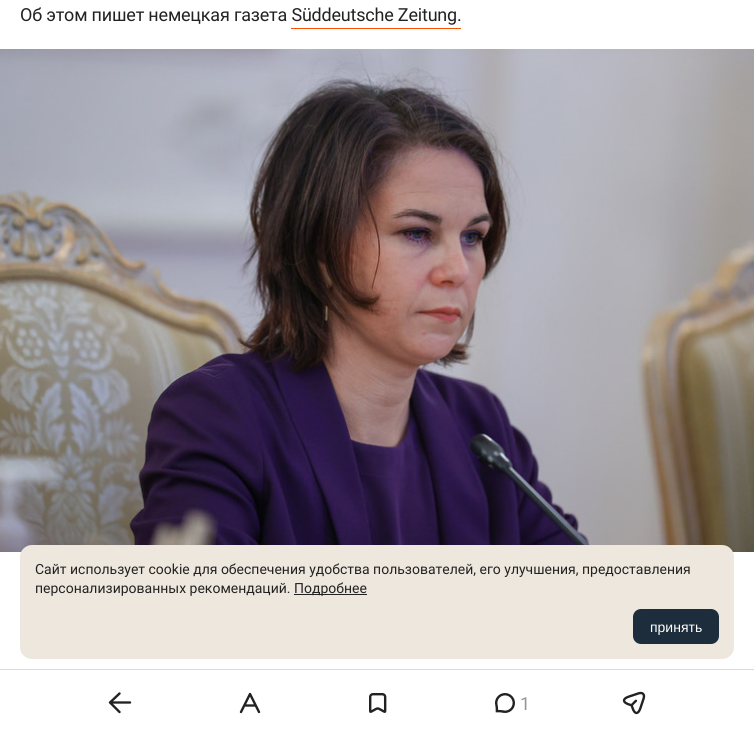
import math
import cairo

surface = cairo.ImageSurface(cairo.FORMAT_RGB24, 754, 739)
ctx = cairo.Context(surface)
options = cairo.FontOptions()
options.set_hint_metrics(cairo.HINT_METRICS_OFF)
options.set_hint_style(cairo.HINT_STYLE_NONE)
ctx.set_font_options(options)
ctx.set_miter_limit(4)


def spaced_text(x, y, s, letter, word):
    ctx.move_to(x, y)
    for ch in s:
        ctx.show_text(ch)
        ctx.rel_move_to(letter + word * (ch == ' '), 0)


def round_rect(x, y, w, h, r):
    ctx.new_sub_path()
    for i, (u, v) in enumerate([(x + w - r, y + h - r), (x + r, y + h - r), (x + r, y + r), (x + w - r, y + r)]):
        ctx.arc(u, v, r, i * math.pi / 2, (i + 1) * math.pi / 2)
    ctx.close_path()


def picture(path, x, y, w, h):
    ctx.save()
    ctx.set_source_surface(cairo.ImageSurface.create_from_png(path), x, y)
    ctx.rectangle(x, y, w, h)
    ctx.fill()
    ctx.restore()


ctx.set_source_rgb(1, 1, 1)
ctx.paint()
ctx.select_font_face("Roboto")
ctx.set_font_size(18)
ctx.set_source_rgb(0.133, 0.133, 0.133)
spaced_text(20, 21, "Об этом пишет немецкая газета Süddeutsche Zeitung.", -0.2, 0)
ctx.set_source_rgb(0.976, 0.318, 0.008)
ctx.rectangle(291, 28, 170, 1)
ctx.fill()
picture("img1.png", 0, 49, 754, 503)
ctx.set_source_rgb(0.851, 0.851, 0.851)
ctx.rectangle(0, 669, 754, 1)
ctx.fill()
ctx.new_path()
ctx.move_to(119.5, 693.5)
ctx.line_to(110, 702.5)
ctx.line_to(119.5, 712)
ctx.move_to(130, 702.5)
ctx.line_to(110.5, 702.5)
ctx.set_source_rgb(0.133, 0.133, 0.133)
ctx.set_line_width(2.4)
ctx.set_line_cap(cairo.LINE_CAP_ROUND)
ctx.set_line_join(cairo.LINE_JOIN_ROUND)
ctx.stroke()
ctx.new_path()
ctx.move_to(241, 712)
ctx.line_to(250, 694)
ctx.line_to(259, 712)
ctx.move_to(244.5, 705.5)
ctx.line_to(255.5, 705.5)
ctx.stroke()
picture("img2.png", 369, 693, 18, 20)
picture("img3.png", 495, 693, 20, 20)
ctx.set_source_rgb(0.588, 0.588, 0.588)
ctx.move_to(520, 710)
ctx.show_text("1")
picture("img4.png", 622, 691, 24, 24)
ctx.set_source_rgb(0.929, 0.906, 0.867)
round_rect(20, 545, 714, 114, 12)
ctx.fill()
ctx.set_font_size(14)
ctx.set_source_rgb(0.133, 0.133, 0.133)
ctx.move_to(35, 574)
ctx.show_text("Сайт использует cookie для обеспечения удобства пользователей, его улучшения, предоставления")
ctx.move_to(35, 593)
ctx.show_text("персонализированных рекомендаций.")
ctx.rectangle(294, 594, 73, 1)
ctx.fill()
ctx.move_to(294, 593)
ctx.show_text("Подробнее")
ctx.set_source_rgb(0.118, 0.176, 0.235)
round_rect(633, 609, 86, 35, 8)
ctx.fill()
ctx.select_font_face("Liberation Sans")
ctx.set_source_rgb(1, 1, 1)
ctx.move_to(650, 632)
ctx.show_text("принять")
surface.write_to_png("page.png")
